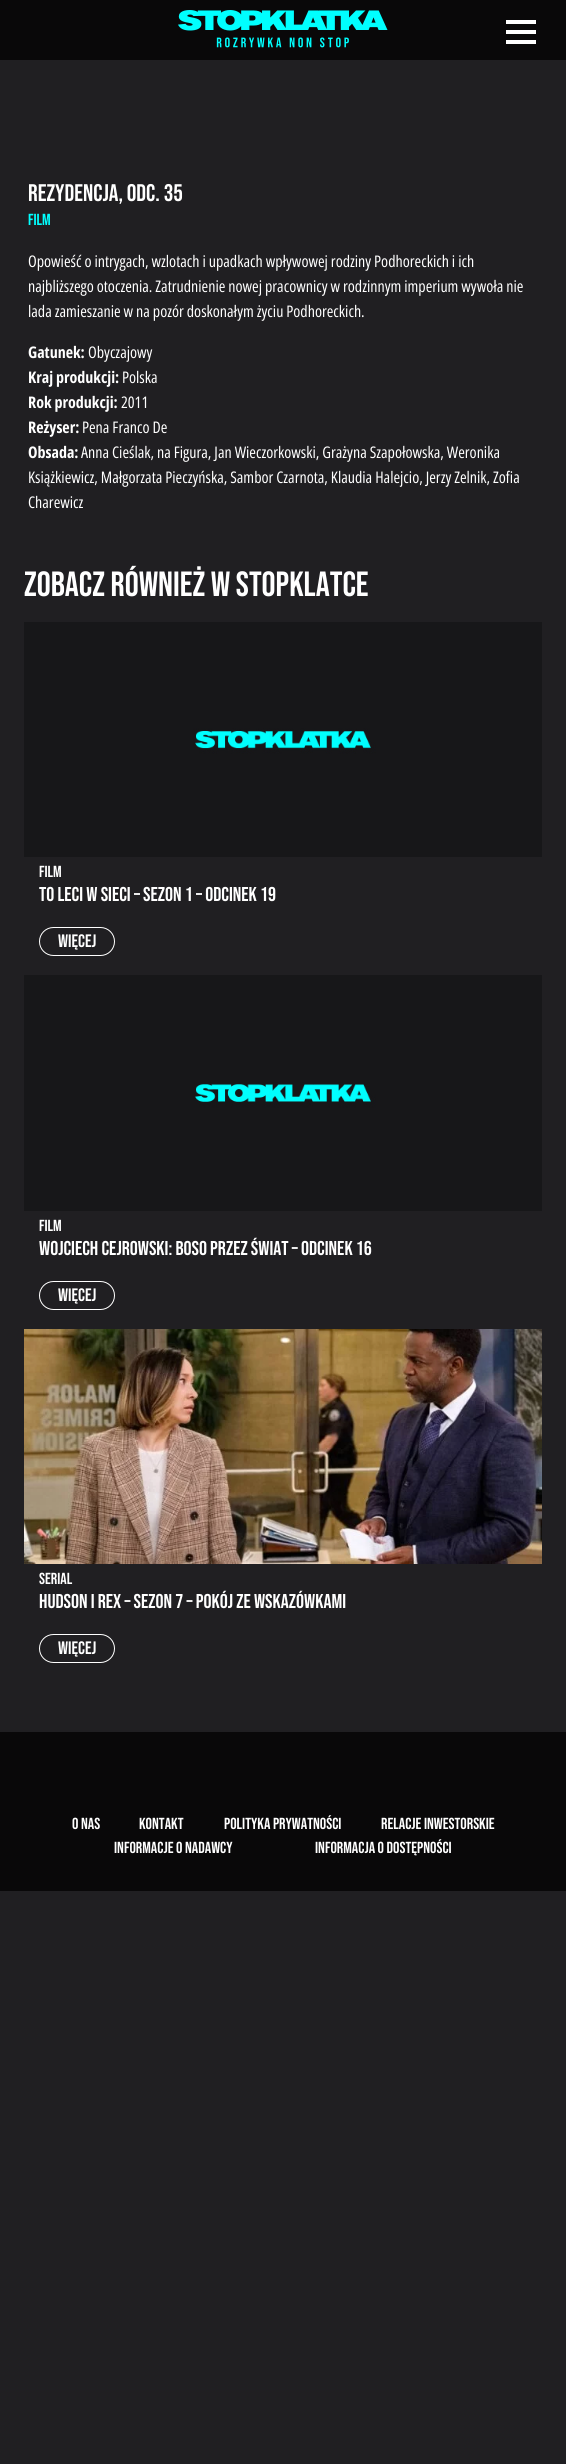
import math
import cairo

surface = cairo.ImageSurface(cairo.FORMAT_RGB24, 566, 2464)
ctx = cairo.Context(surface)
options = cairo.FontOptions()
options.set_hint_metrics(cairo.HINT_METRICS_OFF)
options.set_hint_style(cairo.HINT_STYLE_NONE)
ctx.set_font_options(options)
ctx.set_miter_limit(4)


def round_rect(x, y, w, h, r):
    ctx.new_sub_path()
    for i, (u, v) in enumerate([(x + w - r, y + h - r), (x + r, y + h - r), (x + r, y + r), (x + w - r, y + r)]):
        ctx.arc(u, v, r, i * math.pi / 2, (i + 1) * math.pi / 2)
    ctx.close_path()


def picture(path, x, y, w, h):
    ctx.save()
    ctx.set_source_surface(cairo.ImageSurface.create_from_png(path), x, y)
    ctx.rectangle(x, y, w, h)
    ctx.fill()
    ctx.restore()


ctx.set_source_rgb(0.125, 0.122, 0.133)
ctx.paint()
ctx.set_source_rgb(0.039, 0.035, 0.039)
ctx.rectangle(0, 0, 566, 60)
ctx.fill()
picture("img1.png", 178, 10, 210, 38)
ctx.set_source_rgb(1, 1, 1)
ctx.rectangle(506, 30, 30, 4)
ctx.fill()
ctx.rectangle(506, 20, 30, 4)
ctx.fill()
ctx.rectangle(506, 40, 30, 4)
ctx.fill()
ctx.select_font_face("Bebas Neue")
ctx.set_font_size(24)
ctx.move_to(28, 201)
ctx.show_text("REZYDENCJA, ODC. 35")
ctx.set_font_size(16)
ctx.set_source_rgb(0, 1, 1)
ctx.move_to(28, 225)
ctx.show_text("FILM")
ctx.select_font_face("Open Sans Condensed")
ctx.set_source_rgb(1, 1, 1)
ctx.move_to(28, 267)
ctx.show_text("Opowieść o intrygach, wzlotach i upadkach wpływowej rodziny Podhoreckich i ich")
ctx.move_to(28, 292)
ctx.show_text("najbliższego otoczenia. Zatrudnienie nowej pracownicy w rodzinnym imperium wywoła nie")
ctx.move_to(28, 317)
ctx.show_text("lada zamieszanie w na pozór doskonałym życiu Podhoreckich.")
ctx.select_font_face("Open Sans Condensed", cairo.FONT_SLANT_NORMAL, cairo.FONT_WEIGHT_BOLD)
ctx.move_to(28, 358)
ctx.show_text("Gatunek:")
ctx.select_font_face("Open Sans Condensed")
ctx.move_to(88, 358)
ctx.show_text("Obyczajowy")
ctx.select_font_face("Open Sans Condensed", cairo.FONT_SLANT_NORMAL, cairo.FONT_WEIGHT_BOLD)
ctx.move_to(28, 383)
ctx.show_text("Kraj produkcji:")
ctx.select_font_face("Open Sans Condensed")
ctx.move_to(122, 383)
ctx.show_text("Polska")
ctx.select_font_face("Open Sans Condensed", cairo.FONT_SLANT_NORMAL, cairo.FONT_WEIGHT_BOLD)
ctx.move_to(28, 408)
ctx.show_text("Rok produkcji:")
ctx.select_font_face("Open Sans Condensed")
ctx.move_to(121, 408)
ctx.show_text("2011")
ctx.select_font_face("Open Sans Condensed", cairo.FONT_SLANT_NORMAL, cairo.FONT_WEIGHT_BOLD)
ctx.move_to(28, 433)
ctx.show_text("Reżyser:")
ctx.select_font_face("Open Sans Condensed")
ctx.move_to(82, 433)
ctx.show_text("Pena Franco De")
ctx.select_font_face("Open Sans Condensed", cairo.FONT_SLANT_NORMAL, cairo.FONT_WEIGHT_BOLD)
ctx.move_to(28, 458)
ctx.show_text("Obsada:")
ctx.select_font_face("Open Sans Condensed")
ctx.move_to(81, 458)
ctx.show_text("Anna Cieślak, na Figura, Jan Wieczorkowski, Grażyna Szapołowska, Weronika")
ctx.move_to(28, 483)
ctx.show_text("Książkiewicz, Małgorzata Pieczyńska, Sambor Czarnota, Klaudia Halejcio, Jerzy Zelnik, Zofia")
ctx.move_to(28, 508)
ctx.show_text("Charewicz")
ctx.select_font_face("Bebas Neue")
ctx.set_font_size(35)
ctx.move_to(24, 596)
ctx.show_text("ZOBACZ RÓWNIEŻ W STOPKLATCE")
picture("img2.png", 24, 622, 518, 235)
ctx.set_font_size(16)
ctx.move_to(39, 877)
ctx.show_text("FILM")
ctx.set_font_size(20)
ctx.move_to(39, 901)
ctx.show_text("TO LECI W SIECI – SEZON 1 – ODCINEK 19")
round_rect(39.5, 927.5, 75, 28, 14)
ctx.set_line_width(1)
ctx.stroke()
ctx.set_font_size(18)
ctx.move_to(58, 947)
ctx.show_text("WIĘCEJ")
picture("img3.png", 24, 975, 518, 236)
ctx.set_font_size(16)
ctx.move_to(39, 1231)
ctx.show_text("FILM")
ctx.set_font_size(20)
ctx.move_to(39, 1255)
ctx.show_text("WOJCIECH CEJROWSKI: BOSO PRZEZ ŚWIAT – ODCINEK 16")
round_rect(39.5, 1281.5, 75, 28, 14)
ctx.stroke()
ctx.set_font_size(18)
ctx.move_to(58, 1301)
ctx.show_text("WIĘCEJ")
picture("img4.png", 24, 1329, 518, 235)
ctx.set_font_size(16)
ctx.move_to(39, 1584)
ctx.show_text("SERIAL")
ctx.set_font_size(20)
ctx.move_to(39, 1608)
ctx.show_text("HUDSON I REX – SEZON 7 – POKÓJ ZE WSKAZÓWKAMI")
round_rect(39.5, 1634.5, 75, 28, 14)
ctx.stroke()
ctx.set_font_size(18)
ctx.move_to(58, 1654)
ctx.show_text("WIĘCEJ")
ctx.set_source_rgb(0.039, 0.035, 0.039)
ctx.rectangle(0, 1732, 566, 159)
ctx.fill()
ctx.set_font_size(16)
ctx.set_source_rgb(1, 1, 1)
ctx.move_to(72, 1829)
ctx.show_text("O NAS")
ctx.move_to(139, 1829)
ctx.show_text("KONTAKT")
ctx.move_to(224, 1829)
ctx.show_text("POLITYKA PRYWATNOŚCI")
ctx.move_to(381, 1829)
ctx.show_text("RELACJE INWESTORSKIE")
ctx.move_to(114, 1853)
ctx.show_text("INFORMACJE O NADAWCY")
ctx.move_to(315, 1853)
ctx.show_text("INFORMACJA O DOSTĘPNOŚCI")
surface.write_to_png("page.png")
